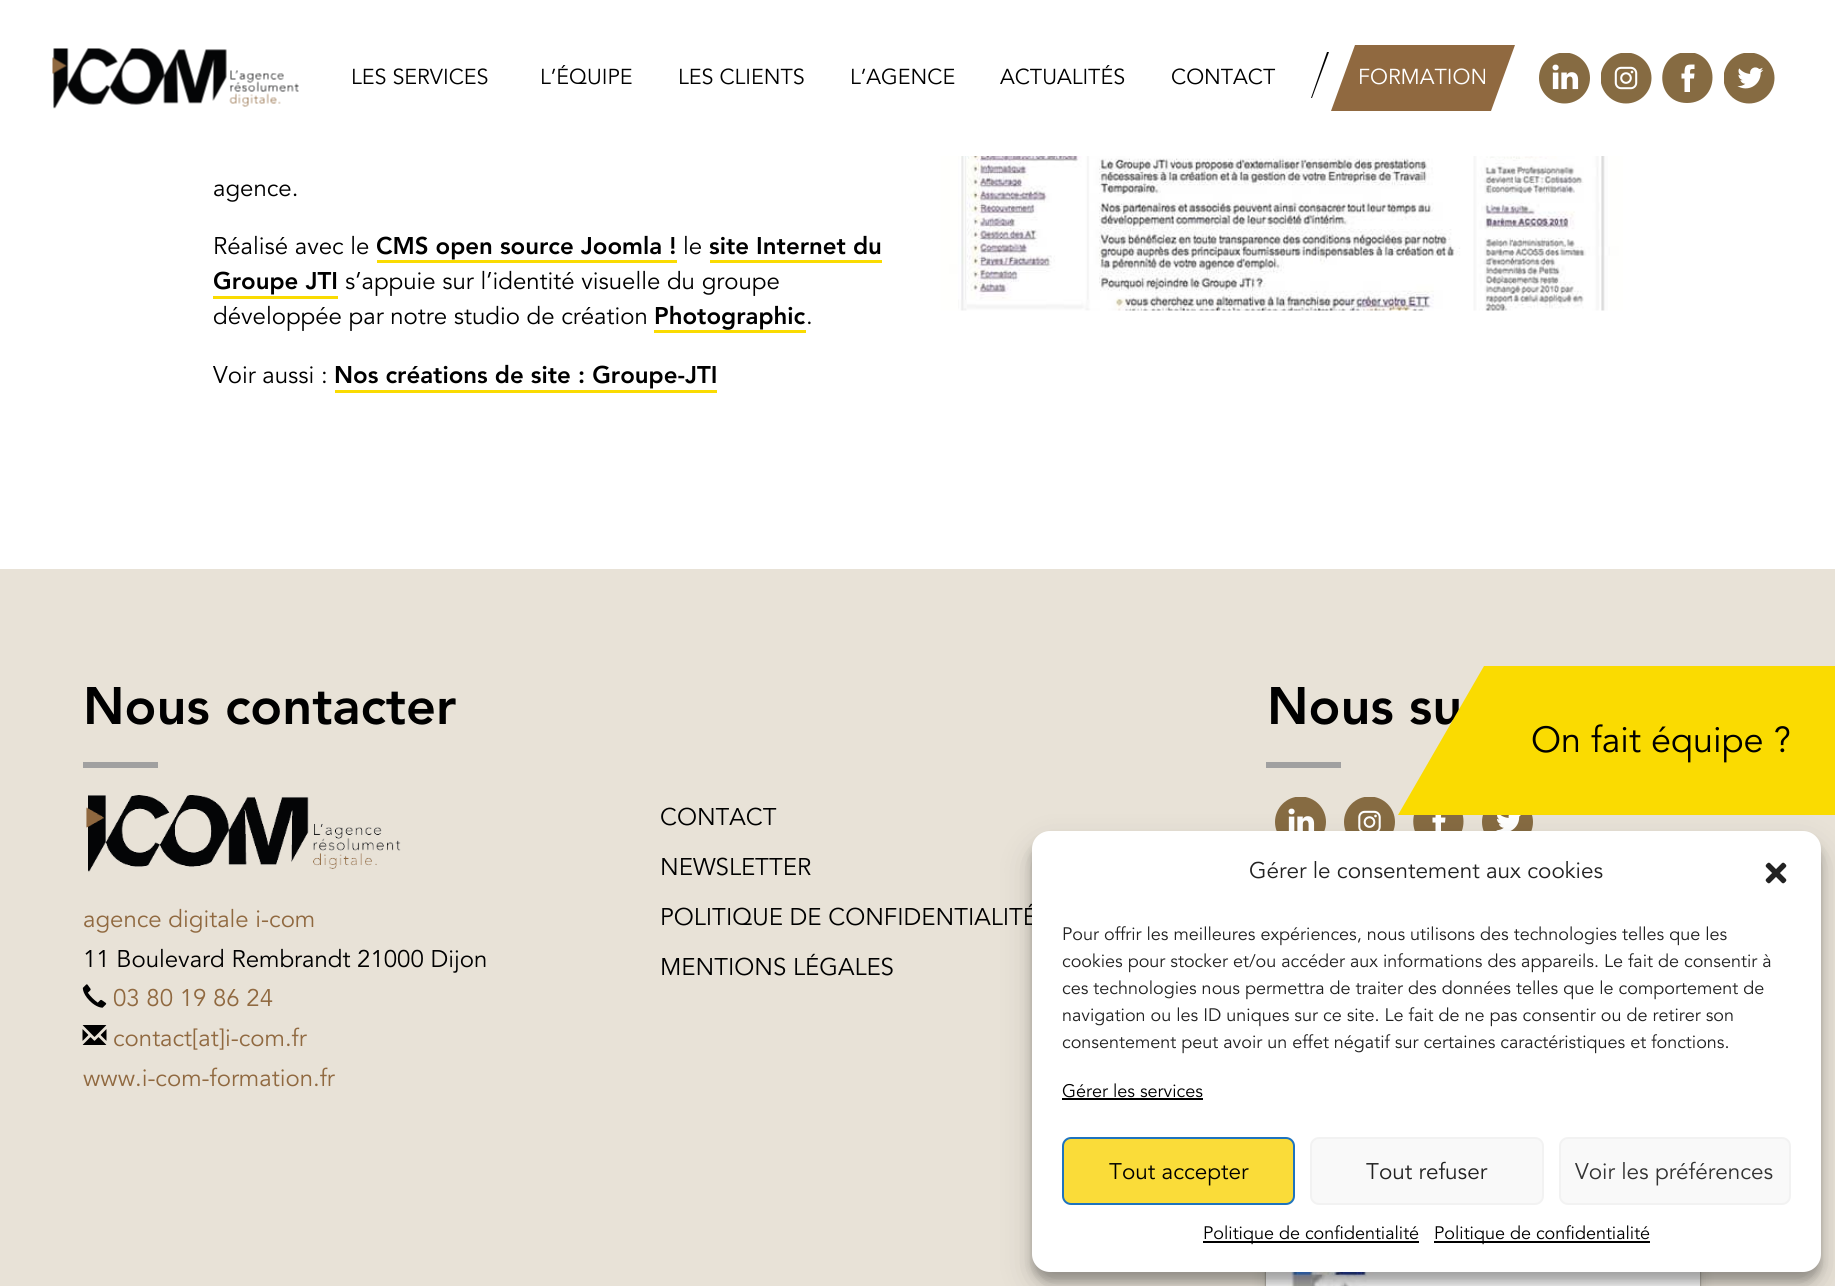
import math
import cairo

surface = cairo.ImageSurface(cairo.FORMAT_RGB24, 1835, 1286)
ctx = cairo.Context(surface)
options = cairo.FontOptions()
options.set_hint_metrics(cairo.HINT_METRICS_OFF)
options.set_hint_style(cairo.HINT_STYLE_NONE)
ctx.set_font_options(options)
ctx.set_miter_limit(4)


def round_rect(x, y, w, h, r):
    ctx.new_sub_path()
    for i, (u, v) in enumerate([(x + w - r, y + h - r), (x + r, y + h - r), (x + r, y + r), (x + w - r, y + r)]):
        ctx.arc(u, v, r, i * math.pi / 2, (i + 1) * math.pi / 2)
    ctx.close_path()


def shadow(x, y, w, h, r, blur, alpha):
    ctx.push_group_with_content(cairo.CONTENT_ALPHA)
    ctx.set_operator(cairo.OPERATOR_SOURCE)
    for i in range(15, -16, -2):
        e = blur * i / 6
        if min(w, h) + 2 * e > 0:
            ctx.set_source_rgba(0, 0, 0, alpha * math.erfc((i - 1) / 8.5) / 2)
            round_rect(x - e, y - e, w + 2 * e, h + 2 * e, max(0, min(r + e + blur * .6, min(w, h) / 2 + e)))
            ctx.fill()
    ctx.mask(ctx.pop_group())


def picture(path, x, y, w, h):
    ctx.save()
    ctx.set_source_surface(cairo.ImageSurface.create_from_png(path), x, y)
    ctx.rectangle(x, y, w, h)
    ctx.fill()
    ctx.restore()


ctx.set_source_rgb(1, 1, 1)
ctx.paint()
picture("img1.png", 52, 48, 247, 61)
ctx.select_font_face("Avenir")
ctx.set_font_size(21.5)
ctx.set_source_rgb(0, 0, 0)
ctx.move_to(351, 84)
ctx.show_text("LES SERVICES")
ctx.move_to(540, 84)
ctx.show_text("L’ÉQUIPE")
ctx.move_to(678, 84)
ctx.show_text("LES CLIENTS")
ctx.move_to(850, 84)
ctx.show_text("L’AGENCE")
ctx.move_to(1000, 84)
ctx.show_text("ACTUALITÉS")
ctx.move_to(1171, 84)
ctx.show_text("CONTACT")
ctx.set_source_rgb(0.565, 0.412, 0.251)
ctx.new_path()
ctx.move_to(1355, 45)
ctx.line_to(1515, 45)
ctx.line_to(1491, 111)
ctx.line_to(1331, 111)
ctx.close_path()
ctx.fill()
ctx.set_source_rgb(0, 0, 0)
ctx.new_path()
ctx.move_to(1327, 52)
ctx.line_to(1329, 52)
ctx.line_to(1312, 98)
ctx.line_to(1311, 98)
ctx.close_path()
ctx.fill()
ctx.set_source_rgb(1, 1, 1)
ctx.move_to(1358, 84)
ctx.show_text("FORMATION")
picture("img2.png", 1539, 53, 51, 51)
picture("img3.png", 1601, 53, 51, 51)
ctx.save()
ctx.rectangle(1662, 53, 51, 51)
ctx.clip()
ctx.set_source_rgb(0.525, 0.42, 0.259)
ctx.new_path()
ctx.move_to(1687, 52)
ctx.curve_to(1721, 52, 1721, 103, 1687, 103)
ctx.curve_to(1654, 103, 1654, 53, 1687, 52)
ctx.close_path()
ctx.fill()
ctx.restore()
ctx.new_path()
ctx.move_to(1690, 92)
ctx.line_to(1684.5, 92)
ctx.line_to(1684.5, 78.5)
ctx.line_to(1681.5, 78.5)
ctx.line_to(1681.5, 73.5)
ctx.line_to(1684.5, 73.5)
ctx.curve_to(1684.5, 64.5, 1686, 64.5, 1694.5, 64.5)
ctx.line_to(1694.5, 69)
ctx.curve_to(1690, 69, 1690, 69, 1690, 73.5)
ctx.line_to(1694.5, 73.5)
ctx.line_to(1694, 78.5)
ctx.line_to(1690, 78.5)
ctx.close_path()
ctx.fill()
picture("img4.png", 1724, 53, 51, 51)
ctx.set_font_size(24)
ctx.set_source_rgb(0, 0, 0)
ctx.move_to(213, 196)
ctx.show_text("agence.")
ctx.move_to(213, 254)
ctx.show_text("Réalisé avec le")
ctx.select_font_face("Avenir Black")
ctx.move_to(376, 254)
ctx.show_text("CMS open source Joomla !")
ctx.set_source_rgb(0.98, 0.859, 0.004)
ctx.rectangle(377, 260, 300, 3)
ctx.fill()
ctx.select_font_face("Avenir")
ctx.set_source_rgb(0, 0, 0)
ctx.move_to(683, 254)
ctx.show_text("le")
ctx.select_font_face("Avenir Black")
ctx.move_to(709, 254)
ctx.show_text("site Internet du")
ctx.set_source_rgb(0.98, 0.859, 0.004)
ctx.rectangle(710, 260, 172, 3)
ctx.fill()
ctx.set_source_rgb(0, 0, 0)
ctx.move_to(213, 289)
ctx.show_text("Groupe JTI")
ctx.set_source_rgb(0.98, 0.859, 0.004)
ctx.rectangle(213, 296, 125, 3)
ctx.fill()
ctx.select_font_face("Avenir")
ctx.set_source_rgb(0, 0, 0)
ctx.move_to(345, 289)
ctx.show_text("s’appuie sur l’identité visuelle du groupe")
ctx.move_to(213, 324)
ctx.show_text("développée par notre studio de création")
ctx.select_font_face("Avenir Black")
ctx.move_to(654, 324)
ctx.show_text("Photographic")
ctx.set_source_rgb(0.98, 0.859, 0.004)
ctx.rectangle(654, 330, 152, 3)
ctx.fill()
ctx.select_font_face("Avenir")
ctx.set_source_rgb(0, 0, 0)
ctx.move_to(806, 324)
ctx.show_text(".")
ctx.move_to(213, 383)
ctx.show_text("Voir aussi :")
ctx.select_font_face("Avenir Black")
ctx.move_to(334, 383)
ctx.show_text("Nos créations de site : Groupe-JTI")
ctx.set_source_rgb(0.98, 0.859, 0.004)
ctx.rectangle(335, 390, 382, 3)
ctx.fill()
picture("img5.png", 940, 156, 683, 155)
ctx.set_source_rgb(0.91, 0.886, 0.843)
ctx.rectangle(0, 569, 1835, 717)
ctx.fill()
ctx.set_font_size(52.25)
ctx.set_source_rgb(0, 0, 0)
ctx.move_to(1267, 724)
ctx.show_text("Nous su")
ctx.set_source_rgb(0.525, 0.42, 0.259)
ctx.new_path()
ctx.move_to(1438, 796)
ctx.curve_to(1472, 796, 1472, 847, 1438, 847)
ctx.curve_to(1405, 847, 1405, 796, 1438, 796)
ctx.close_path()
ctx.fill()
ctx.set_source_rgb(1, 1, 1)
ctx.new_path()
ctx.move_to(1441, 836)
ctx.line_to(1435.5, 836)
ctx.line_to(1435.5, 822.5)
ctx.line_to(1432.5, 822.5)
ctx.line_to(1432.5, 817.5)
ctx.line_to(1435.5, 817.5)
ctx.curve_to(1435.5, 808.5, 1437, 808.5, 1445.5, 808.5)
ctx.line_to(1445.5, 813)
ctx.curve_to(1441, 813, 1441, 813, 1441, 817.5)
ctx.line_to(1445.5, 817.5)
ctx.line_to(1445, 822.5)
ctx.line_to(1441, 822.5)
ctx.close_path()
ctx.fill()
ctx.set_source_rgb(0.98, 0.859, 0.004)
ctx.new_path()
ctx.move_to(1484, 666)
ctx.line_to(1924, 666)
ctx.line_to(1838, 815)
ctx.line_to(1398, 815)
ctx.close_path()
ctx.fill()
ctx.select_font_face("Avenir")
ctx.set_font_size(36)
ctx.set_source_rgb(0, 0, 0)
ctx.move_to(1531, 752)
ctx.show_text("On fait équipe ?")
ctx.select_font_face("Avenir Black")
ctx.set_font_size(52.25)
ctx.move_to(83, 724)
ctx.show_text("Nous contacter")
ctx.set_source_rgb(0.627, 0.627, 0.627)
ctx.rectangle(83, 762, 75, 6)
ctx.fill()
picture("img6.png", 86, 795, 315, 77)
ctx.select_font_face("Avenir")
ctx.set_font_size(24)
ctx.set_source_rgb(0.565, 0.412, 0.251)
ctx.move_to(83, 927)
ctx.show_text("agence digitale i-com")
ctx.set_source_rgb(0, 0, 0)
ctx.move_to(83, 967)
ctx.show_text("11 Boulevard Rembrandt 21000 Dijon")
picture("img7.png", 82, 984, 25, 24)
ctx.set_source_rgb(0.565, 0.412, 0.251)
ctx.move_to(113, 1006)
ctx.show_text("03 80 19 86 24")
picture("img8.png", 82, 1025, 25, 20)
ctx.move_to(113, 1046)
ctx.show_text("contact[at]i-com.fr")
ctx.move_to(83, 1086)
ctx.show_text("www.i-com-formation.fr")
ctx.set_source_rgb(0.627, 0.627, 0.627)
ctx.rectangle(1266, 762, 75, 6)
ctx.fill()
picture("img9.png", 1275, 797, 51, 34)
picture("img10.png", 1344, 797, 51, 34)
picture("img11.png", 1482, 815, 51, 16)
ctx.set_source_rgb(0, 0, 0)
shadow(1266, 1232, 434, 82, 5, 7.5, 0.15)
shadow(1266, 1230, 434, 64, 5, 1, 0.5)
ctx.set_source_rgb(1, 1, 1)
ctx.rectangle(1699, 1272, 1, 14)
ctx.fill()
picture("img12.png", 1266, 1272, 434, 14)
ctx.set_source_rgb(0, 0, 0)
ctx.move_to(660, 825)
ctx.show_text("CONTACT")
ctx.move_to(660, 875)
ctx.show_text("NEWSLETTER")
ctx.move_to(660, 925)
ctx.show_text("POLITIQUE DE CONFIDENTIALITÉ")
ctx.move_to(660, 975)
ctx.show_text("MENTIONS LÉGALES")
ctx.set_source_rgb(0, 0, 0)
shadow(1032, 840, 789, 441, 18, 4.5, 0.23)
shadow(1032, 846, 789, 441, 18, 15, 0.19)
ctx.set_source_rgb(1, 1, 1)
round_rect(1032, 831, 789, 441, 18)
ctx.fill()
ctx.set_font_size(22.5)
ctx.set_source_rgb(0.133, 0.133, 0.133)
ctx.move_to(1249, 878)
ctx.show_text("Gérer le consentement aux cookies")
picture("img13.png", 1765, 862, 22, 22)
ctx.set_font_size(18)
ctx.move_to(1062, 940)
ctx.show_text("Pour offrir les meilleures expériences, nous utilisons des technologies telles que les")
ctx.move_to(1062, 967)
ctx.show_text("cookies pour stocker et/ou accéder aux informations des appareils. Le fait de consentir à")
ctx.move_to(1062, 994)
ctx.show_text("ces technologies nous permettra de traiter des données telles que le comportement de")
ctx.move_to(1062, 1021)
ctx.show_text("navigation ou les ID uniques sur ce site. Le fait de ne pas consentir ou de retirer son")
ctx.move_to(1062, 1048)
ctx.show_text("consentement peut avoir un effet négatif sur certaines caractéristiques et fonctions.")
ctx.set_source_rgb(0, 0, 0)
ctx.move_to(1062, 1097)
ctx.show_text("Gérer les services")
ctx.rectangle(1062, 1098, 141, 2)
ctx.fill()
ctx.set_source_rgb(0.98, 0.863, 0.224)
round_rect(1063, 1138, 231, 66, 8)
ctx.fill_preserve()
ctx.set_source_rgb(0.118, 0.451, 0.745)
ctx.stroke()
ctx.set_font_size(22.5)
ctx.set_source_rgb(0, 0, 0)
ctx.move_to(1109, 1179)
ctx.show_text("Tout accepter")
ctx.set_source_rgb(0.976, 0.976, 0.976)
round_rect(1311, 1138, 232, 66, 8)
ctx.fill_preserve()
ctx.set_source_rgb(0.949, 0.949, 0.949)
ctx.stroke()
ctx.set_source_rgb(0.133, 0.133, 0.133)
ctx.move_to(1366, 1179)
ctx.show_text("Tout refuser")
ctx.set_source_rgb(0.976, 0.976, 0.976)
round_rect(1560, 1138, 230, 66, 8)
ctx.fill_preserve()
ctx.set_source_rgb(0.949, 0.949, 0.949)
ctx.stroke()
ctx.set_source_rgb(0.2, 0.2, 0.2)
ctx.move_to(1575, 1179)
ctx.show_text("Voir les préférences")
ctx.set_source_rgb(0, 0, 0)
ctx.rectangle(1203, 1241, 216, 2)
ctx.fill()
ctx.set_font_size(18)
ctx.move_to(1203, 1239)
ctx.show_text("Politique de confidentialité")
ctx.rectangle(1434, 1241, 216, 2)
ctx.fill()
ctx.move_to(1434, 1239)
ctx.show_text("Politique de confidentialité")
surface.write_to_png("page.png")
